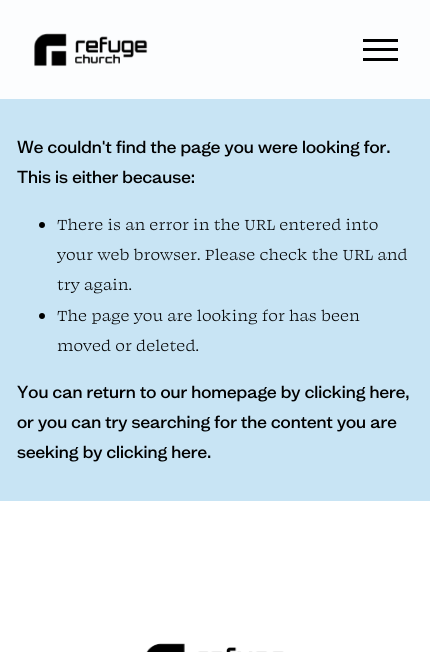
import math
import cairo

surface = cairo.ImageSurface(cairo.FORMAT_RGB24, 430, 652)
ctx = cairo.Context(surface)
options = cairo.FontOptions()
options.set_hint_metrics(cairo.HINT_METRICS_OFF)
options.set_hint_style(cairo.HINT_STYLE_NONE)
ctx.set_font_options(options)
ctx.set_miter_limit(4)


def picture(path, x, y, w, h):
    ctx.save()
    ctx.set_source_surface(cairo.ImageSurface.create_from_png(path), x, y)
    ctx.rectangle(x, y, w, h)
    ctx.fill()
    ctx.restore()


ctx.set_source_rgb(0.784, 0.894, 0.957)
ctx.paint()
ctx.set_source_rgb(0.988, 0.992, 0.996)
ctx.rectangle(0, 0, 430, 99)
ctx.fill()
picture("img1.png", 34, 33, 114, 34)
ctx.set_source_rgb(0, 0, 0)
ctx.rectangle(363, 39, 35, 3)
ctx.fill()
ctx.rectangle(363, 48, 35, 3)
ctx.fill()
ctx.rectangle(363, 58, 35, 3)
ctx.fill()
ctx.select_font_face("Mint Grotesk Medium")
ctx.set_font_size(16.75)
ctx.move_to(17, 153)
ctx.show_text("We couldn't find the page you were looking for.")
ctx.move_to(17, 183)
ctx.show_text("This is either because:")
ctx.new_path()
ctx.arc(42, 225, 3, 0, 2 * math.pi)
ctx.fill()
ctx.select_font_face("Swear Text")
ctx.move_to(57, 230)
ctx.show_text("There is an error in the URL entered into")
ctx.move_to(57, 260)
ctx.show_text("your web browser. Please check the URL and")
ctx.move_to(57, 290)
ctx.show_text("try again.")
ctx.new_path()
ctx.arc(42, 316, 3, 0, 2 * math.pi)
ctx.fill()
ctx.move_to(57, 321)
ctx.show_text("The page you are looking for has been")
ctx.move_to(57, 351)
ctx.show_text("moved or deleted.")
ctx.select_font_face("Mint Grotesk Medium")
ctx.move_to(17, 398)
ctx.show_text("You can return to our homepage by clicking here,")
ctx.move_to(17, 428)
ctx.show_text("or you can try searching for the content you are")
ctx.move_to(17, 458)
ctx.show_text("seeking by clicking here.")
ctx.set_source_rgb(1, 1, 1)
ctx.rectangle(0, 501, 430, 151)
ctx.fill()
picture("img2.png", 146, 643, 138, 9)
surface.write_to_png("page.png")
